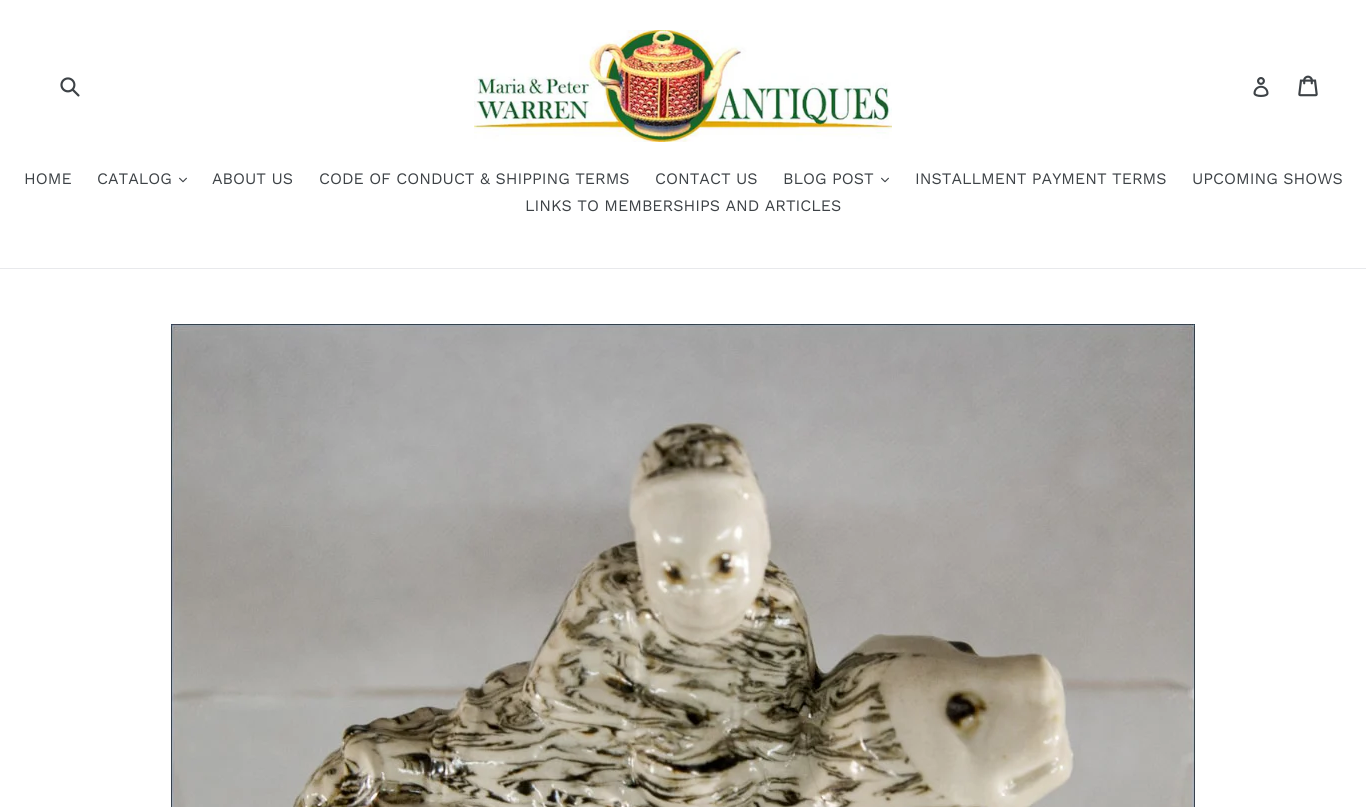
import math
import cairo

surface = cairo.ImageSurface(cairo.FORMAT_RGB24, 1366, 807)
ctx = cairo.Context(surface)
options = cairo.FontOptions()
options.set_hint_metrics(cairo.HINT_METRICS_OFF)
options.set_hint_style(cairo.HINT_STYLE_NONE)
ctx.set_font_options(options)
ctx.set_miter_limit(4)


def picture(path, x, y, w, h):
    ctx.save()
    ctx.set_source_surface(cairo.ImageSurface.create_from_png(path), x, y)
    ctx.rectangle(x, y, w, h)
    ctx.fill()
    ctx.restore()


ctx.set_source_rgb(1, 1, 1)
ctx.paint()
picture("img1.png", 60, 77, 20, 20)
picture("img2.png", 474, 30, 418, 112)
picture("img3.png", 1253, 77, 16, 20)
picture("img4.png", 1298, 75, 20, 22)
ctx.set_source_rgb(0.91, 0.914, 0.922)
ctx.rectangle(0, 268, 1366, 1)
ctx.fill()
ctx.select_font_face("Work Sans")
ctx.set_font_size(16)
ctx.set_source_rgb(0.239, 0.259, 0.275)
ctx.move_to(24, 184)
ctx.show_text("HOME")
ctx.move_to(97, 184)
ctx.show_text("CATALOG")
picture("img5.png", 179, 177, 8, 6)
ctx.move_to(212, 184)
ctx.show_text("ABOUT US")
ctx.move_to(319, 184)
ctx.show_text("CODE OF CONDUCT & SHIPPING TERMS")
ctx.move_to(655, 184)
ctx.show_text("CONTACT US")
ctx.move_to(783, 184)
ctx.show_text("BLOG POST")
picture("img5.png", 881, 177, 8, 6)
ctx.move_to(915, 184)
ctx.show_text("INSTALLMENT PAYMENT TERMS")
ctx.move_to(1192, 184)
ctx.show_text("UPCOMING SHOWS")
ctx.move_to(525, 211)
ctx.show_text("LINKS TO MEMBERSHIPS AND ARTICLES")
picture("img6.png", 171, 324, 1024, 483)
surface.write_to_png("page.png")
